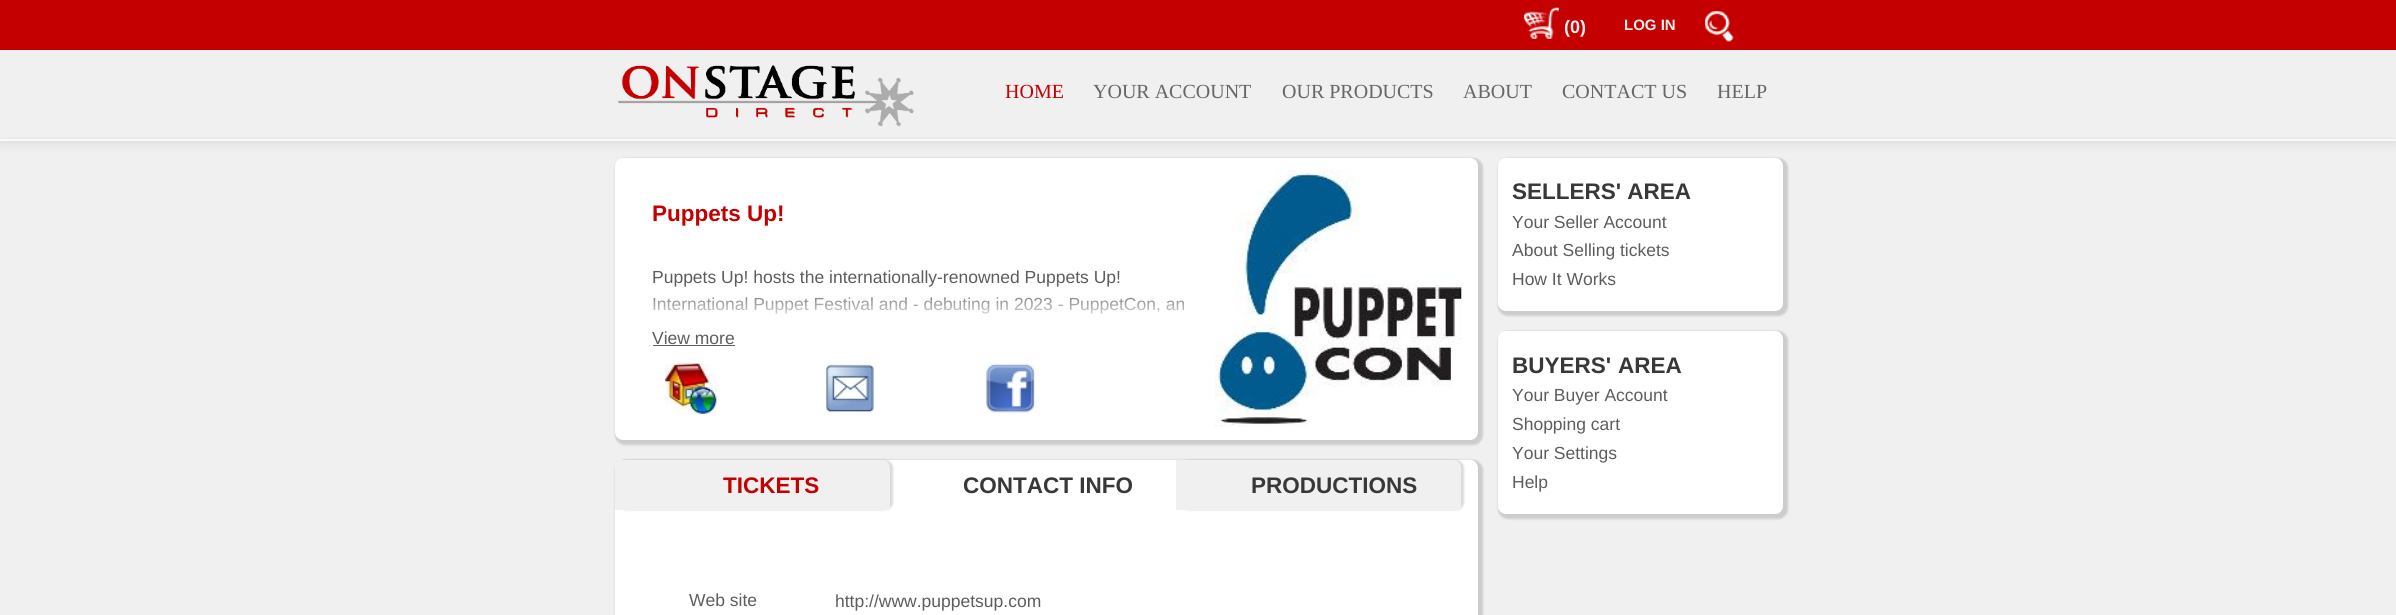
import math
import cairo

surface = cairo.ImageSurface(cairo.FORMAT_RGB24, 2396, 615)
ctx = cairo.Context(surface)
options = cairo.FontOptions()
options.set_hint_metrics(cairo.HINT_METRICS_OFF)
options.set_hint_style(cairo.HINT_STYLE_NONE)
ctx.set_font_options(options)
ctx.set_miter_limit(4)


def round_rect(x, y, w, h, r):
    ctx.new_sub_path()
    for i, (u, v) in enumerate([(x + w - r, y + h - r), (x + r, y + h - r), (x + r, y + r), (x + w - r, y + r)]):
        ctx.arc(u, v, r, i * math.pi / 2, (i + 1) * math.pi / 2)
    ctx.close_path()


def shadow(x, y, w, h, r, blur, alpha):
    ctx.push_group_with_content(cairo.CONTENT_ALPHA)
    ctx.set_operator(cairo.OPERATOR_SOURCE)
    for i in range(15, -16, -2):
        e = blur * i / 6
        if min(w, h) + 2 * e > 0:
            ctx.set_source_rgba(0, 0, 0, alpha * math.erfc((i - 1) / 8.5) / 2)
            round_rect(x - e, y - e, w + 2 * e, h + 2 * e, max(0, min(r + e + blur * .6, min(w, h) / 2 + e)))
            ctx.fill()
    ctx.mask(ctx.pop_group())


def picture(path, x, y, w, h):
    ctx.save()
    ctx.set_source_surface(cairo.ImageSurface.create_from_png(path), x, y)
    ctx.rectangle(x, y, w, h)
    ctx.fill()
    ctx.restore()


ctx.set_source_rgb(0.941, 0.941, 0.941)
ctx.paint()
ctx.set_source_rgb(0, 0, 0)
shadow(0, 0, 2396, 138, 0, 7.5, 0.2)
ctx.set_source_rgb(0.98, 0.98, 0.98)
ctx.rectangle(0, 138, 2396, 3)
ctx.fill()
ctx.set_source_rgb(0, 0, 0)
shadow(0, 0, 2396, 138, 0, 0.5, 0.3)
ctx.set_source_rgb(0.769, 0, 0)
ctx.rectangle(0, 0, 2396, 50)
ctx.fill()
picture("img1.png", 1523, 7, 36, 32)
ctx.select_font_face("Liberation Sans", cairo.FONT_SLANT_NORMAL, cairo.FONT_WEIGHT_BOLD)
ctx.set_font_size(18)
ctx.set_source_rgb(0.941, 0.941, 0.941)
ctx.move_to(1564, 33)
ctx.show_text("(0)")
ctx.set_font_size(15)
ctx.move_to(1624, 30)
ctx.show_text("LOG IN")
picture("img2.png", 1704, 10, 30, 33)
ctx.rectangle(0, 50, 2396, 88)
ctx.fill()
picture("img3.png", 617, 65, 297, 62)
ctx.select_font_face("Liberation Serif")
ctx.set_font_size(20)
ctx.set_source_rgb(0.769, 0, 0)
ctx.move_to(1005, 98)
ctx.show_text("HOME")
ctx.set_source_rgb(0.4, 0.4, 0.4)
ctx.move_to(1093, 98)
ctx.show_text("YOUR ACCOUNT")
ctx.move_to(1282, 98)
ctx.show_text("OUR PRODUCTS")
ctx.move_to(1463, 98)
ctx.show_text("ABOUT")
ctx.move_to(1562, 98)
ctx.show_text("CONTACT US")
ctx.move_to(1717, 98)
ctx.show_text("HELP")
ctx.set_source_rgb(0, 0, 0)
shadow(615, 158, 868, 287, 10, 1, 0.15)
ctx.set_source_rgb(1, 1, 1)
round_rect(615, 158, 863, 282, 8)
ctx.fill()
ctx.select_font_face("Liberation Sans", cairo.FONT_SLANT_NORMAL, cairo.FONT_WEIGHT_BOLD)
ctx.set_font_size(22.5)
ctx.set_source_rgb(0.769, 0, 0)
ctx.move_to(652, 221)
ctx.show_text("Puppets Up!")
picture("img4.png", 1215, 170, 248, 257)
ctx.select_font_face("Liberation Sans")
ctx.set_font_size(17.5)
ctx.set_source_rgb(0.365, 0.365, 0.365)
ctx.move_to(652, 283)
ctx.show_text("Puppets Up! hosts the internationally-renowned Puppets Up!")
ctx.move_to(652, 310)
ctx.show_text("International Puppet Festival and - debuting in 2023 - PuppetCon, an")
gradient = cairo.LinearGradient(909, 287, 909, 325)
gradient.add_color_stop_rgba(0, 1, 1, 1, 0)
gradient.add_color_stop_rgba(1, 1, 1, 1, 1)
ctx.set_source(gradient)
ctx.rectangle(653, 297, 531, 17)
ctx.fill()
ctx.set_source_rgb(0.365, 0.365, 0.365)
ctx.move_to(652, 344)
ctx.show_text("View more")
ctx.rectangle(653, 345, 82, 1)
ctx.fill()
picture("img5.png", 665, 363, 52, 51)
picture("img6.png", 825, 364, 50, 50)
picture("img7.png", 985, 363, 51, 51)
ctx.set_source_rgb(0, 0, 0)
shadow(615, 460, 868, 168, 10, 1, 0.15)
ctx.set_source_rgb(1, 1, 1)
round_rect(615, 460, 863, 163, 8)
ctx.fill()
ctx.set_source_rgb(0, 0, 0)
shadow(618, 460, 275, 50, 8, 1, 0.15)
ctx.set_source_rgb(0.941, 0.941, 0.941)
ctx.new_path()
ctx.move_to(623, 460)
ctx.line_to(882, 460)
ctx.curve_to(886.5, 460, 890, 463.5, 890, 468)
ctx.line_to(890, 510)
ctx.line_to(615, 510)
ctx.line_to(615, 468)
ctx.curve_to(615, 463.5, 618.5, 460, 623, 460)
ctx.close_path()
ctx.fill()
ctx.select_font_face("Liberation Sans", cairo.FONT_SLANT_NORMAL, cairo.FONT_WEIGHT_BOLD)
ctx.set_font_size(22.5)
ctx.set_source_rgb(0.769, 0, 0)
ctx.move_to(723, 493)
ctx.show_text("TICKETS")
ctx.set_source_rgb(0.22, 0.22, 0.22)
ctx.move_to(963, 493)
ctx.show_text("CONTACT INFO")
ctx.set_source_rgb(0, 0, 0)
shadow(1179, 460, 285, 50, 8, 1, 0.15)
ctx.set_source_rgb(0.941, 0.941, 0.941)
ctx.new_path()
ctx.move_to(1176, 460)
ctx.line_to(1453, 460)
ctx.curve_to(1457.5, 460, 1461, 463.5, 1461, 468)
ctx.line_to(1461, 510)
ctx.line_to(1176, 510)
ctx.close_path()
ctx.fill()
ctx.set_source_rgb(0.22, 0.22, 0.22)
ctx.move_to(1251, 493)
ctx.show_text("PRODUCTIONS")
ctx.select_font_face("Liberation Sans")
ctx.set_font_size(17.5)
ctx.set_source_rgb(0.365, 0.365, 0.365)
ctx.move_to(689, 606)
ctx.show_text("Web site")
ctx.move_to(835, 607)
ctx.show_text("http://www.puppetsup.com")
ctx.set_source_rgb(0, 0, 0)
shadow(1498, 158, 290, 158, 10, 1, 0.15)
ctx.set_source_rgb(1, 1, 1)
round_rect(1498, 158, 285, 153, 8)
ctx.fill()
ctx.select_font_face("Liberation Sans", cairo.FONT_SLANT_NORMAL, cairo.FONT_WEIGHT_BOLD)
ctx.set_font_size(22.5)
ctx.set_source_rgb(0.22, 0.22, 0.22)
ctx.move_to(1512, 199)
ctx.show_text("SELLERS' AREA")
ctx.select_font_face("Liberation Sans")
ctx.set_font_size(17.5)
ctx.set_source_rgb(0.365, 0.365, 0.365)
ctx.move_to(1512, 228)
ctx.show_text("Your Seller Account")
ctx.move_to(1512, 256)
ctx.show_text("About Selling tickets")
ctx.move_to(1512, 285)
ctx.show_text("How It Works")
ctx.set_source_rgb(0, 0, 0)
shadow(1498, 331, 290, 188, 10, 1, 0.15)
ctx.set_source_rgb(1, 1, 1)
round_rect(1498, 331, 285, 183, 8)
ctx.fill()
ctx.select_font_face("Liberation Sans", cairo.FONT_SLANT_NORMAL, cairo.FONT_WEIGHT_BOLD)
ctx.set_font_size(22.5)
ctx.set_source_rgb(0.22, 0.22, 0.22)
ctx.move_to(1512, 373)
ctx.show_text("BUYERS'")
ctx.move_to(1618, 373)
ctx.show_text("AREA")
ctx.select_font_face("Liberation Sans")
ctx.set_font_size(17.5)
ctx.set_source_rgb(0.365, 0.365, 0.365)
ctx.move_to(1512, 401)
ctx.show_text("Your Buyer Account")
ctx.move_to(1512, 430)
ctx.show_text("Shopping cart")
ctx.move_to(1512, 459)
ctx.show_text("Your Settings")
ctx.move_to(1512, 488)
ctx.show_text("Help")
surface.write_to_png("page.png")
